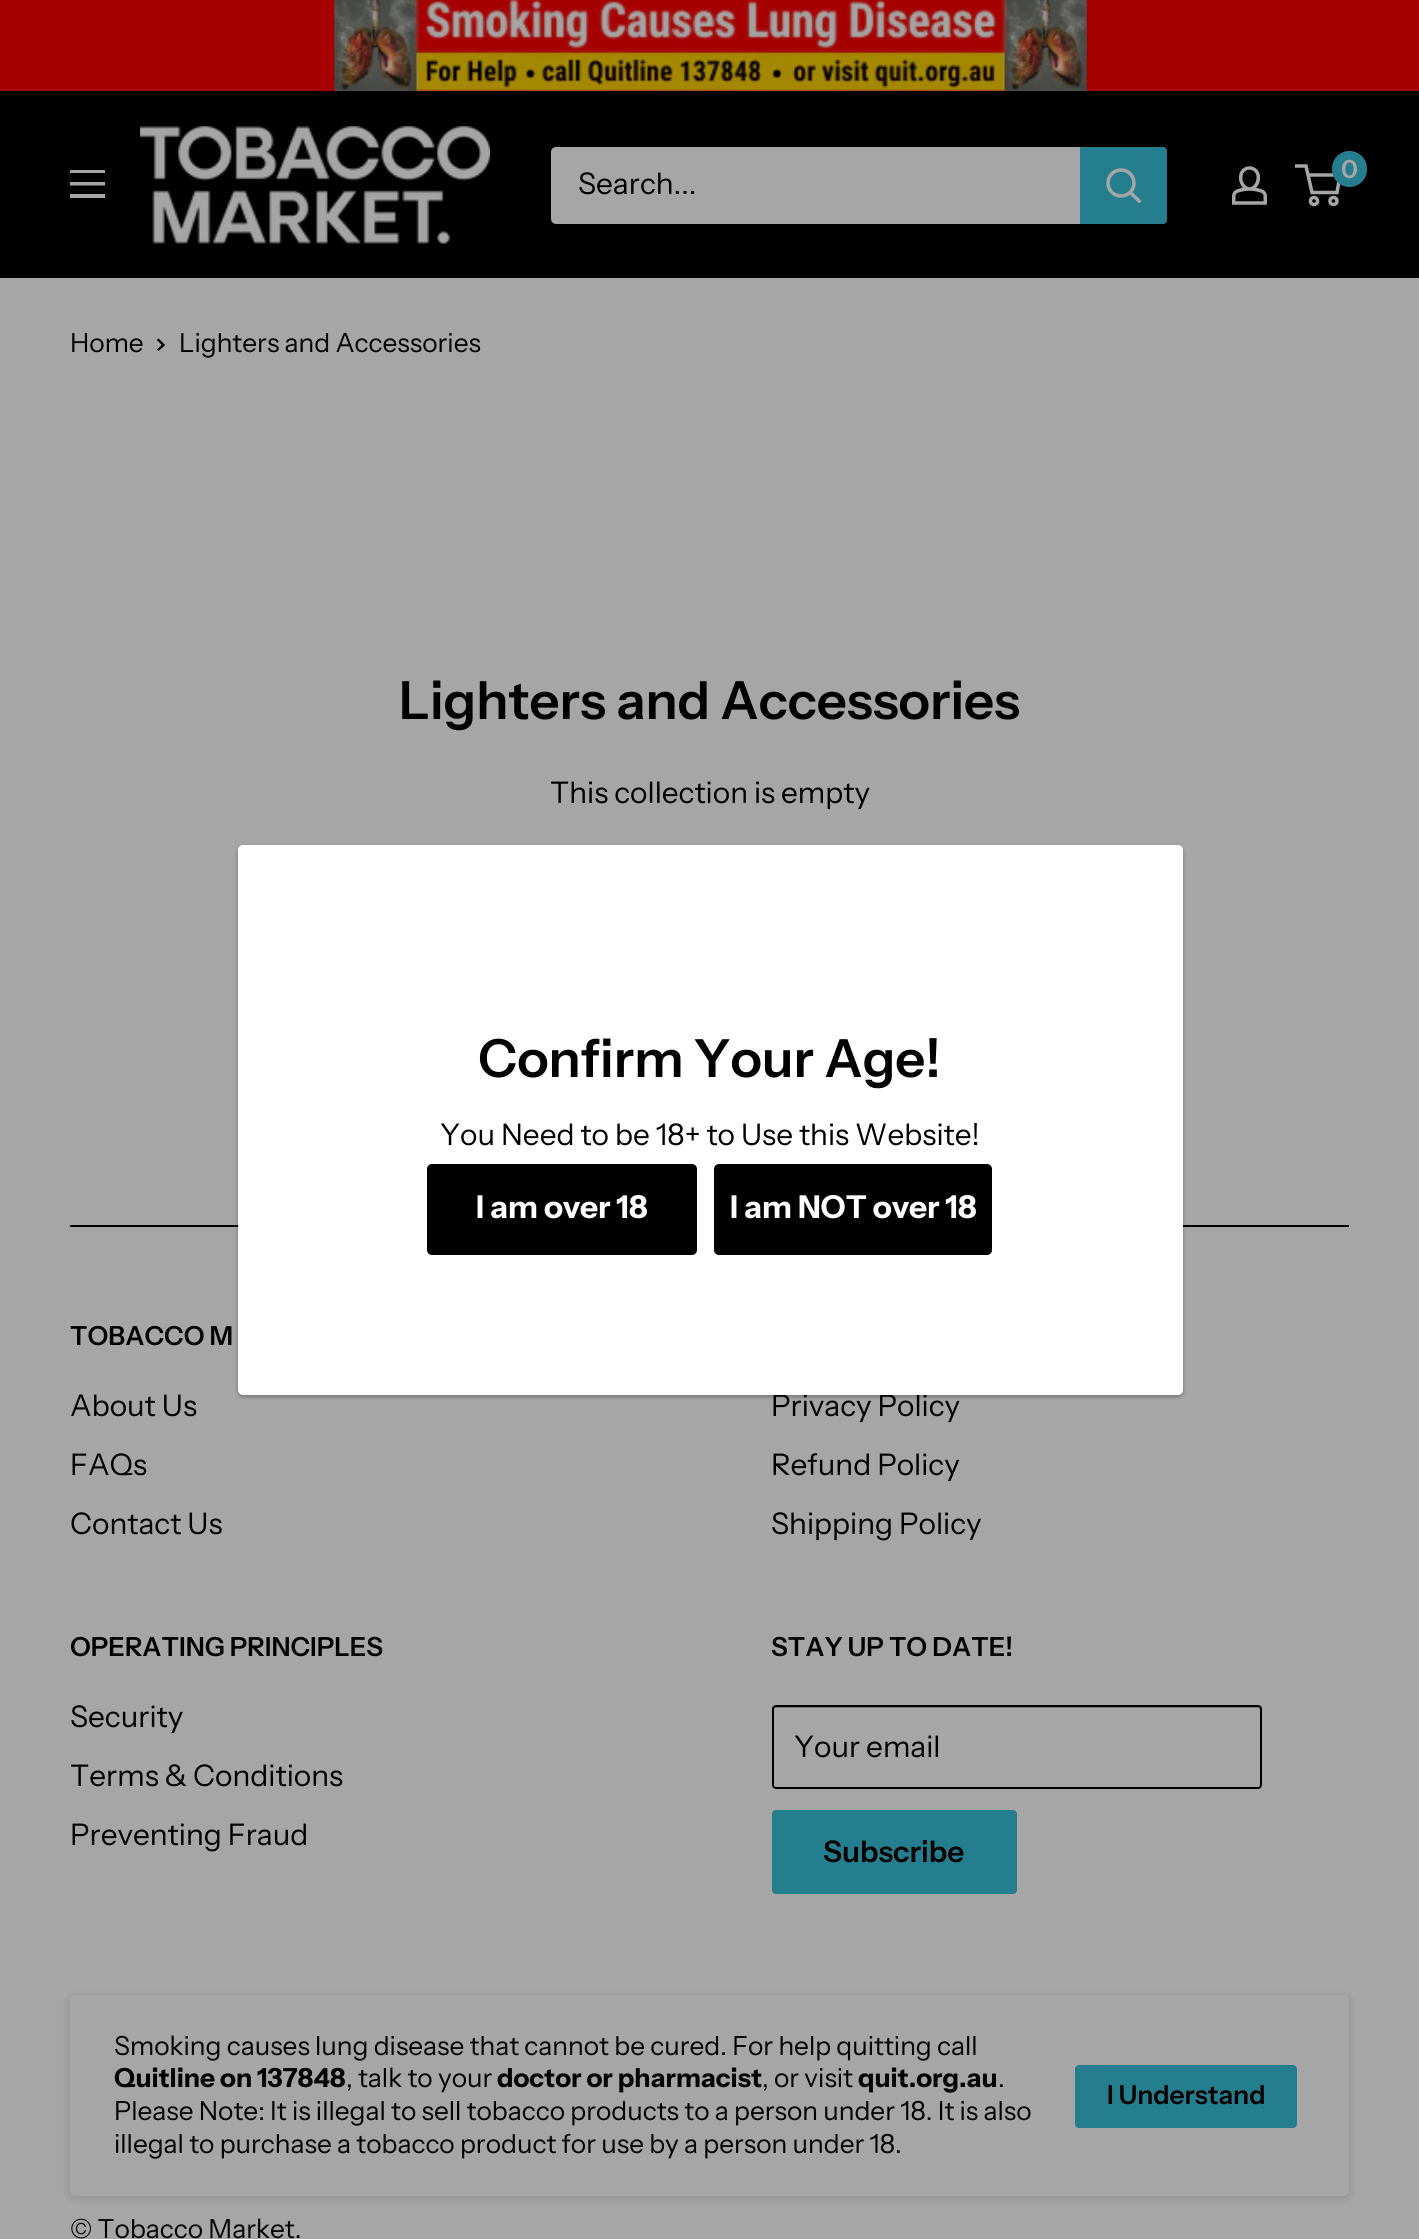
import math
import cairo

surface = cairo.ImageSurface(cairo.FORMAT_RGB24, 1419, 2239)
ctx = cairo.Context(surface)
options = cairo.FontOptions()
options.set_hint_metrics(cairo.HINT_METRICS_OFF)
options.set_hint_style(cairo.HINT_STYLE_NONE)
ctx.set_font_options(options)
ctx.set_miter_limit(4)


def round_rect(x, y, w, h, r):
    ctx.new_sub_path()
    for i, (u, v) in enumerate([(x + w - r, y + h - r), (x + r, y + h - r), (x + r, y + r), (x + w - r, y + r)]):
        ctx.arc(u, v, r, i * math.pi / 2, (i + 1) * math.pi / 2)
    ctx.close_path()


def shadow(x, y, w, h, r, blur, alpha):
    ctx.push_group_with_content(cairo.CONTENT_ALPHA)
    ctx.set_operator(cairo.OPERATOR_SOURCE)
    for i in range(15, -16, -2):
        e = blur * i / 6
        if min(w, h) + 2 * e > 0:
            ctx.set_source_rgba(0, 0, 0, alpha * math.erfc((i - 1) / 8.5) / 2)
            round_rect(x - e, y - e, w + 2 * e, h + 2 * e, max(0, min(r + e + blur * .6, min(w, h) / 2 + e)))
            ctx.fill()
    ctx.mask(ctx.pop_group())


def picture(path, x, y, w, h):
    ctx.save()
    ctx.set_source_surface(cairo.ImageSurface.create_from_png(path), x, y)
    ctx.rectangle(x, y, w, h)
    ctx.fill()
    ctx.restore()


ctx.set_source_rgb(0.651, 0.651, 0.651)
ctx.paint()
ctx.set_source_rgb(0.651, 0, 0)
ctx.rectangle(0, 0, 1419, 91)
ctx.fill()
picture("img1.png", 334, 0, 753, 91)
ctx.set_source_rgb(0, 0, 0)
ctx.rectangle(0, 91, 1419, 187)
ctx.fill()
ctx.set_source_rgb(0.651, 0.651, 0.651)
ctx.set_fill_rule(cairo.FILL_RULE_EVEN_ODD)
ctx.new_path()
ctx.move_to(70, 194)
ctx.line_to(105, 194)
ctx.line_to(105, 198)
ctx.line_to(70, 198)
ctx.close_path()
ctx.move_to(70, 170)
ctx.line_to(105, 170)
ctx.line_to(105, 173)
ctx.line_to(70, 173)
ctx.close_path()
ctx.move_to(70, 182)
ctx.line_to(105, 182)
ctx.line_to(105, 185.5)
ctx.line_to(70, 185.5)
ctx.close_path()
ctx.fill()
picture("img2.png", 140, 126, 350, 118)
round_rect(551, 147, 616, 77, 5)
ctx.fill()
ctx.select_font_face("Instrument Sans")
ctx.set_font_size(29.75)
ctx.set_source_rgb(0, 0, 0)
ctx.move_to(578, 194)
ctx.show_text("Search...")
ctx.set_source_rgb(0.145, 0.494, 0.553)
ctx.new_path()
ctx.move_to(1080, 147)
ctx.line_to(1162, 147)
ctx.curve_to(1165, 147, 1167, 149, 1167, 152)
ctx.line_to(1167, 219)
ctx.curve_to(1167, 222, 1165, 224, 1162, 224)
ctx.line_to(1080, 224)
ctx.close_path()
ctx.fill()
ctx.new_path()
ctx.move_to(1139, 201)
ctx.line_to(1130.5, 192.5)
ctx.set_source_rgb(0.651, 0.651, 0.651)
ctx.set_line_width(3.5)
ctx.set_line_cap(cairo.LINE_CAP_SQUARE)
ctx.stroke()
ctx.arc(1121, 183, 13, 0, 2 * math.pi)
ctx.set_line_cap(cairo.LINE_CAP_BUTT)
ctx.stroke()
picture("img3.png", 1232, 166, 35, 39)
ctx.arc(1314, 201, 3.5, 0, 2 * math.pi)
ctx.stroke()
ctx.arc(1333.5, 201, 3.5, 0, 2 * math.pi)
ctx.stroke()
ctx.new_path()
ctx.move_to(1308, 175)
ctx.line_to(1340, 175)
ctx.line_to(1337, 192.5)
ctx.line_to(1312, 192.5)
ctx.line_to(1306, 166)
ctx.line_to(1295, 166)
ctx.stroke()
ctx.set_source_rgb(0.145, 0.494, 0.553)
round_rect(1332, 151, 35, 36, 17.5)
ctx.fill()
ctx.select_font_face("Instrument Sans SemiBold")
ctx.set_font_size(25)
ctx.set_source_rgb(0.651, 0.651, 0.651)
ctx.move_to(1341, 178)
ctx.show_text("0")
ctx.select_font_face("Instrument Sans")
ctx.set_font_size(26.25)
ctx.set_source_rgb(0, 0, 0)
ctx.move_to(70, 352)
ctx.show_text("Home")
ctx.new_path()
ctx.move_to(158.5, 340)
ctx.line_to(163.5, 345)
ctx.line_to(158.5, 349.5)
ctx.set_line_width(2.3)
ctx.set_line_cap(cairo.LINE_CAP_SQUARE)
ctx.stroke()
ctx.move_to(179, 352)
ctx.show_text("Lighters and Accessories")
ctx.select_font_face("Instrument Sans SemiBold")
ctx.set_font_size(52.5)
ctx.move_to(399, 719)
ctx.show_text("Lighters and Accessories")
ctx.select_font_face("Instrument Sans")
ctx.set_font_size(29.75)
ctx.move_to(550, 803)
ctx.show_text("This collection is empty")
ctx.rectangle(70, 1225, 1279, 2)
ctx.fill()
ctx.set_source_rgb(0, 0, 0)
shadow(238, 847, 945, 550, 5, 2, 0.3)
ctx.set_source_rgb(0, 0, 0)
ctx.move_to(771, 1416)
ctx.show_text("Privacy Policy")
ctx.set_source_rgb(1, 1, 1)
round_rect(238, 845, 945, 550, 5)
ctx.fill()
ctx.select_font_face("Instrument Sans SemiBold")
ctx.set_font_size(52.5)
ctx.set_source_rgb(0, 0, 0)
ctx.move_to(478, 1077)
ctx.show_text("Confirm Your Age!")
ctx.select_font_face("Instrument Sans")
ctx.set_font_size(29.75)
ctx.move_to(440, 1145)
ctx.show_text("You Need to be 18+ to Use this Website!")
round_rect(427, 1164, 270, 91, 5)
ctx.fill()
ctx.select_font_face("Instrument Sans", cairo.FONT_SLANT_NORMAL, cairo.FONT_WEIGHT_BOLD)
ctx.set_font_size(31.5)
ctx.set_source_rgb(1, 1, 1)
ctx.move_to(476, 1218)
ctx.show_text("I am over 18")
ctx.set_source_rgb(0, 0, 0)
round_rect(714, 1164, 278, 91, 5)
ctx.fill()
ctx.set_source_rgb(1, 1, 1)
ctx.move_to(730, 1218)
ctx.show_text("I am NOT over 18")
ctx.select_font_face("Instrument Sans SemiBold")
ctx.set_font_size(26.25)
ctx.set_source_rgb(0, 0, 0)
ctx.move_to(70, 1345)
ctx.show_text("TOBACCO M")
ctx.select_font_face("Instrument Sans")
ctx.set_font_size(29.75)
ctx.move_to(70, 1416)
ctx.show_text("About Us")
ctx.move_to(70, 1475)
ctx.show_text("FAQs")
ctx.move_to(70, 1534)
ctx.show_text("Contact Us")
ctx.move_to(771, 1475)
ctx.show_text("Refund Policy")
ctx.move_to(771, 1534)
ctx.show_text("Shipping Policy")
ctx.select_font_face("Instrument Sans SemiBold")
ctx.set_font_size(26.25)
ctx.move_to(70, 1656)
ctx.show_text("OPERATING PRINCIPLES")
ctx.select_font_face("Instrument Sans")
ctx.set_font_size(29.75)
ctx.move_to(70, 1727)
ctx.show_text("Security")
ctx.move_to(70, 1786)
ctx.show_text("Terms & Conditions")
ctx.move_to(70, 1845)
ctx.show_text("Preventing Fraud")
ctx.select_font_face("Instrument Sans SemiBold")
ctx.set_font_size(26.25)
ctx.move_to(771, 1656)
ctx.show_text("STAY UP TO DATE!")
ctx.set_source_rgb(0.486, 0.486, 0.486)
ctx.set_fill_rule(cairo.FILL_RULE_WINDING)
ctx.new_path()
ctx.move_to(775, 1708)
ctx.line_to(1258, 1708)
ctx.curve_to(1259, 1708, 1260, 1709, 1260, 1710)
ctx.curve_to(1260, 1708, 1260, 1706, 1258, 1706)
ctx.line_to(776, 1706)
ctx.curve_to(774, 1706, 774, 1708, 774, 1710)
ctx.curve_to(774, 1709, 774, 1708, 775, 1708)
ctx.close_path()
ctx.fill()
round_rect(773, 1706, 488, 82, 3)
ctx.set_source_rgb(0, 0, 0)
ctx.set_line_width(2)
ctx.set_line_cap(cairo.LINE_CAP_BUTT)
ctx.stroke()
ctx.select_font_face("Instrument Sans")
ctx.set_font_size(29.75)
ctx.move_to(794, 1757)
ctx.show_text("Your email")
ctx.set_source_rgb(0.145, 0.494, 0.553)
round_rect(772, 1810, 245, 84, 4)
ctx.fill()
ctx.select_font_face("Instrument Sans SemiBold")
ctx.set_source_rgb(0, 0, 0)
ctx.move_to(823, 1862)
ctx.show_text("Subscribe")
ctx.select_font_face("Instrument Sans")
ctx.set_font_size(26.25)
ctx.move_to(70, 2238)
ctx.show_text("© Tobacco Market.")
ctx.set_source_rgb(0, 0, 0)
shadow(68, 1995, 1283, 205, 7, 3.5, 0.1)
ctx.set_source_rgb(0.651, 0.651, 0.651)
round_rect(70, 1995, 1279, 201, 5)
ctx.fill()
ctx.set_source_rgb(0, 0, 0)
ctx.move_to(114, 2055)
ctx.show_text("Smoking causes lung disease that cannot be cured. For help quitting call")
ctx.select_font_face("Instrument Sans", cairo.FONT_SLANT_NORMAL, cairo.FONT_WEIGHT_BOLD)
ctx.move_to(114, 2087)
ctx.show_text("Quitline on 137848")
ctx.select_font_face("Instrument Sans")
ctx.move_to(346, 2087)
ctx.show_text(", talk to your")
ctx.select_font_face("Instrument Sans", cairo.FONT_SLANT_NORMAL, cairo.FONT_WEIGHT_BOLD)
ctx.move_to(497, 2087)
ctx.show_text("doctor or pharmacist")
ctx.select_font_face("Instrument Sans")
ctx.move_to(762, 2087)
ctx.show_text(", or visit")
ctx.select_font_face("Instrument Sans", cairo.FONT_SLANT_NORMAL, cairo.FONT_WEIGHT_BOLD)
ctx.move_to(858, 2087)
ctx.show_text("quit.org.au")
ctx.select_font_face("Instrument Sans")
ctx.move_to(998, 2087)
ctx.show_text(".")
ctx.move_to(114, 2120)
ctx.show_text("Please Note: It is illegal to sell tobacco products to a person under 18. It is also")
ctx.move_to(114, 2153)
ctx.show_text("illegal to purchase a tobacco product for use by a person under 18.")
ctx.set_source_rgb(0.145, 0.494, 0.553)
round_rect(1075, 2065, 222, 63, 4)
ctx.fill()
ctx.select_font_face("Instrument Sans SemiBold")
ctx.set_source_rgb(0, 0, 0)
ctx.move_to(1107, 2104)
ctx.show_text("I Understand")
surface.write_to_png("page.png")
